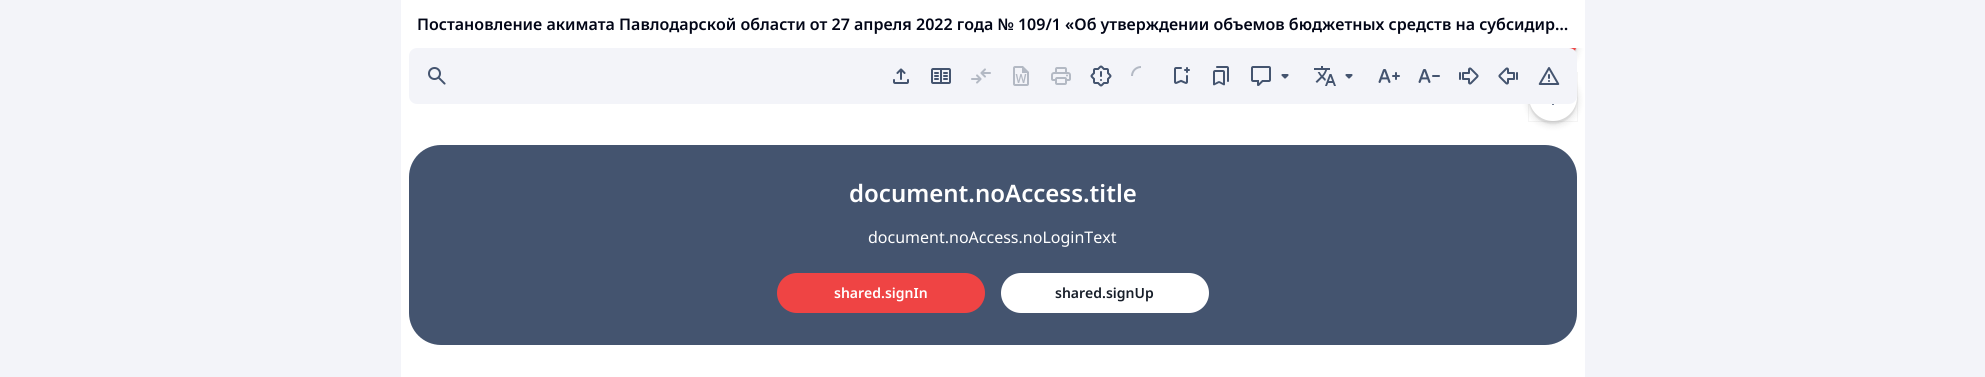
import math
import cairo

surface = cairo.ImageSurface(cairo.FORMAT_RGB24, 1985, 377)
ctx = cairo.Context(surface)
options = cairo.FontOptions()
options.set_hint_metrics(cairo.HINT_METRICS_OFF)
options.set_hint_style(cairo.HINT_STYLE_NONE)
ctx.set_font_options(options)
ctx.set_miter_limit(4)


def round_rect(x, y, w, h, r):
    ctx.new_sub_path()
    for i, (u, v) in enumerate([(x + w - r, y + h - r), (x + r, y + h - r), (x + r, y + r), (x + w - r, y + r)]):
        ctx.arc(u, v, r, i * math.pi / 2, (i + 1) * math.pi / 2)
    ctx.close_path()


def shadow(x, y, w, h, r, blur, alpha):
    ctx.push_group_with_content(cairo.CONTENT_ALPHA)
    ctx.set_operator(cairo.OPERATOR_SOURCE)
    for i in range(15, -16, -2):
        e = blur * i / 6
        if min(w, h) + 2 * e > 0:
            ctx.set_source_rgba(0, 0, 0, alpha * math.erfc((i - 1) / 8.5) / 2)
            round_rect(x - e, y - e, w + 2 * e, h + 2 * e, max(0, min(r + e + blur * .6, min(w, h) / 2 + e)))
            ctx.fill()
    ctx.mask(ctx.pop_group())


def picture(path, x, y, w, h):
    ctx.save()
    ctx.set_source_surface(cairo.ImageSurface.create_from_png(path), x, y)
    ctx.rectangle(x, y, w, h)
    ctx.fill()
    ctx.restore()


ctx.set_source_rgb(0.953, 0.957, 0.976)
ctx.paint()
ctx.set_source_rgb(1, 1, 1)
ctx.rectangle(401, 0, 1184, 377)
ctx.fill()
ctx.arc(1553, 41, 24.5, 0, 2 * math.pi)
ctx.set_source_rgb(0.961, 0.961, 0.961)
ctx.set_line_width(1)
ctx.stroke()
ctx.set_source_rgb(0, 0, 0)
shadow(1529, 20, 48, 48, 24, 4, 0.15)
shadow(1529, 20, 48, 48, 24, 0.5, 0.06)
ctx.set_source_rgb(0.937, 0.267, 0.267)
ctx.arc(1553, 41, 24, 0, 2 * math.pi)
ctx.fill()
ctx.set_source_rgb(1, 1, 1)
ctx.new_path()
ctx.move_to(409, 0)
ctx.line_to(1577, 0)
ctx.curve_to(1581.5, 0, 1585, 3.5, 1585, 8)
ctx.line_to(1585, 48)
ctx.line_to(401, 48)
ctx.line_to(401, 8)
ctx.curve_to(401, 3.5, 404.5, 0, 409, 0)
ctx.close_path()
ctx.fill()
ctx.select_font_face("Noto Sans SemiBold")
ctx.set_font_size(16)
ctx.set_source_rgb(0.008, 0.024, 0.09)
ctx.move_to(417, 30)
ctx.show_text("Постановление акимата Павлодарской области от 27 апреля 2022 года № 109/1 «Об утверждении объемов бюджетных средств на субсидир…")
ctx.rectangle(1528.5, 72.5, 49, 49)
ctx.set_source_rgba(0, 0, 0, 0.04)
ctx.stroke()
ctx.set_source_rgb(0, 0, 0)
shadow(1529, 76, 48, 48, 24, 4, 0.15)
shadow(1529, 76, 48, 48, 24, 0.5, 0.06)
ctx.set_source_rgb(1, 1, 1)
ctx.arc(1553, 97, 24, 0, 2 * math.pi)
ctx.fill()
ctx.set_source_rgb(0.953, 0.957, 0.976)
round_rect(409, 48, 1168, 56, 8)
ctx.fill()
picture("img1.png", 428, 67, 18, 18)
picture("img2.png", 893, 68, 16, 16)
picture("img3.png", 931, 68, 20, 16)
picture("img4.png", 971, 68, 20, 16)
picture("img5.png", 1013, 66, 16, 20)
picture("img6.png", 1051, 67, 20, 18)
picture("img7.png", 1090, 65, 22, 22)
picture("img8.png", 1131, 66, 10, 10)
picture("img9.png", 1174, 67, 16, 17)
picture("img10.png", 1213, 66, 16, 20)
picture("img11.png", 1251, 66, 20, 20)
picture("img12.png", 1281, 74, 8, 5)
picture("img13.png", 1314, 66, 22, 20)
picture("img12.png", 1345, 74, 8, 5)
picture("img14.png", 1378, 69, 22, 14)
picture("img15.png", 1418, 69, 22, 14)
picture("img16.png", 1459, 67, 20, 18)
picture("img17.png", 1498, 67, 20, 18)
picture("img18.png", 1538, 67, 22, 18)
picture("img19.png", 1552, 104, 2, 1)
ctx.set_source_rgb(0.267, 0.329, 0.435)
round_rect(409, 145, 1168, 200, 32)
ctx.fill()
ctx.set_font_size(24)
ctx.set_source_rgb(1, 1, 1)
ctx.move_to(849, 202)
ctx.show_text("document.noAccess.title")
ctx.select_font_face("Noto Sans")
ctx.set_font_size(16)
ctx.move_to(868, 243)
ctx.show_text("document.noAccess.noLoginText")
ctx.set_source_rgb(0.937, 0.267, 0.267)
round_rect(777, 273, 208, 40, 20)
ctx.fill()
ctx.select_font_face("Noto Sans SemiBold")
ctx.set_font_size(14)
ctx.set_source_rgb(1, 1, 1)
ctx.move_to(834, 298)
ctx.show_text("shared.signIn")
round_rect(1001, 273, 208, 40, 20)
ctx.fill()
ctx.set_source_rgb(0.09, 0.118, 0.161)
ctx.move_to(1055, 298)
ctx.show_text("shared.signUp")
surface.write_to_png("page.png")
